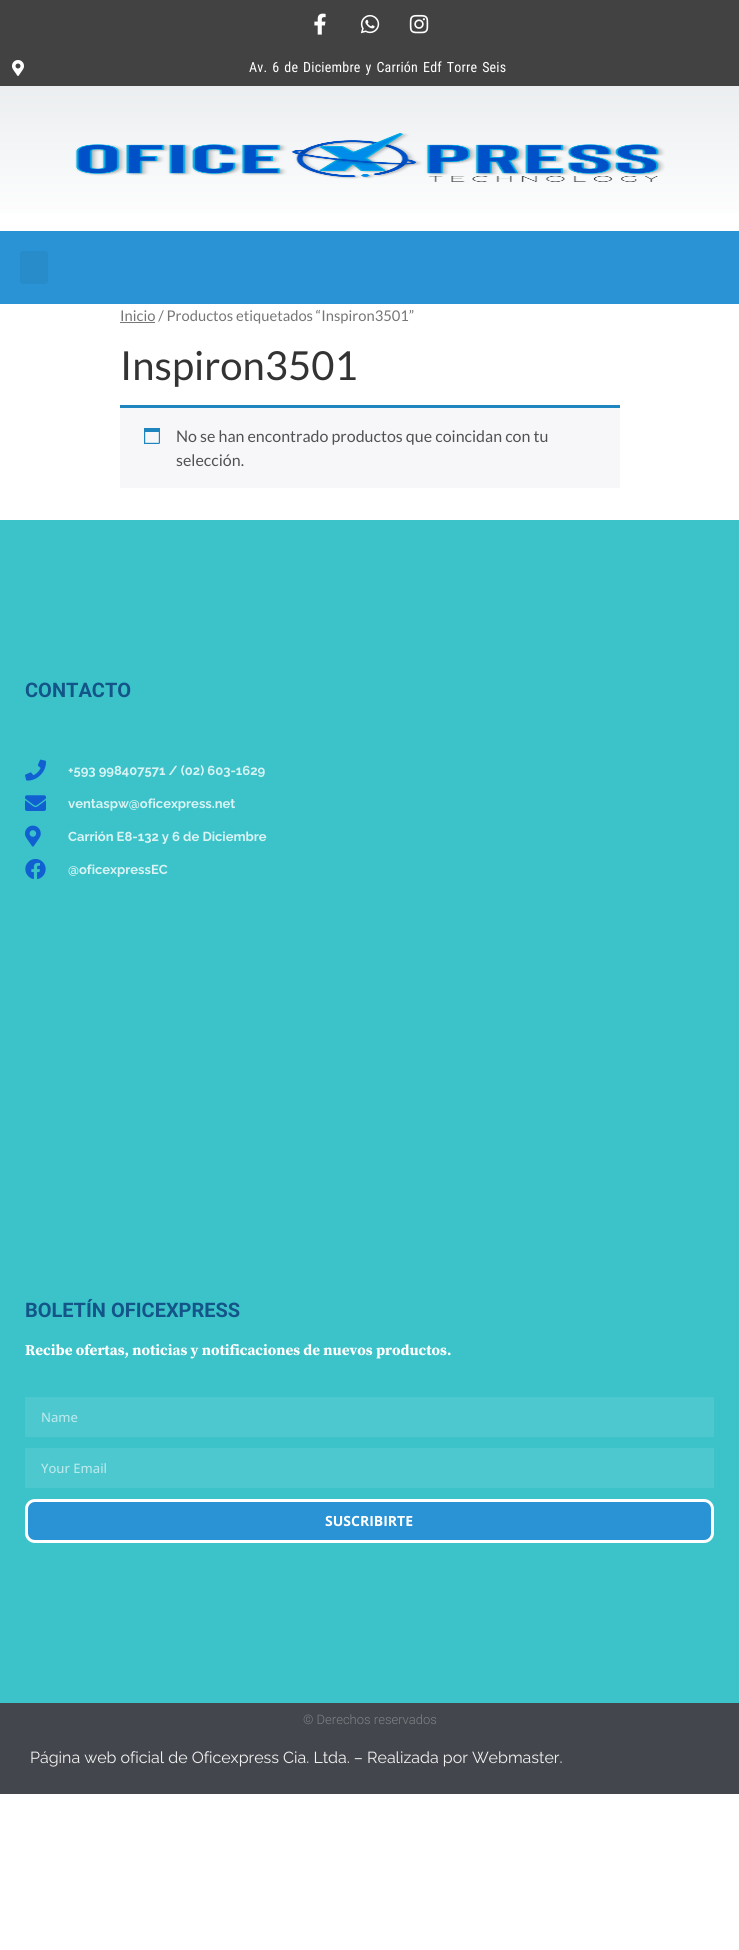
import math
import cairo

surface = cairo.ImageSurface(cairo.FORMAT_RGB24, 739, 1950)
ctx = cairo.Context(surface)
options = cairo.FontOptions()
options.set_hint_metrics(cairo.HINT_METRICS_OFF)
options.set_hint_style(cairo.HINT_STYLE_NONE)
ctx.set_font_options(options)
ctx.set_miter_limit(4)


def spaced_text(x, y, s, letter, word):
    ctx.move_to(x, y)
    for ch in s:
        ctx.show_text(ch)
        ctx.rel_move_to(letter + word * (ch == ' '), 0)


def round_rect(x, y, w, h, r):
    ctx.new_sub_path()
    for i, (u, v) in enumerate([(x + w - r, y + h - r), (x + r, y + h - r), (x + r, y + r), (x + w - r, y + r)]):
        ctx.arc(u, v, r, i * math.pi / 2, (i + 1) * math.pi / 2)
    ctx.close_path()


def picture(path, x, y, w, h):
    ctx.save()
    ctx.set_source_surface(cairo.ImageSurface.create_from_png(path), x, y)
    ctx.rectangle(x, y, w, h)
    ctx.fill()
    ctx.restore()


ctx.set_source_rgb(1, 1, 1)
ctx.paint()
ctx.set_source_rgb(0.259, 0.259, 0.259)
ctx.rectangle(0, 0, 739, 86)
ctx.fill()
picture("img1.png", 314, 13, 12, 22)
picture("img2.png", 360, 14, 20, 20)
picture("img3.png", 409, 14, 20, 20)
picture("img4.png", 12, 60, 12, 16)
ctx.select_font_face("Roboto Condensed")
ctx.set_font_size(14)
ctx.set_source_rgb(1, 1, 1)
spaced_text(249, 72, "Av. 6 de Diciembre y Carrión Edf Torre Seis", 0.2, 1.5)
gradient = cairo.LinearGradient(370, 86, 370, 231)
gradient.add_color_stop_rgba(0, 0.922, 0.933, 0.941, 1)
gradient.add_color_stop_rgba(1, 1, 1, 1, 1)
ctx.set_source(gradient)
ctx.rectangle(0, 86, 739, 127)
ctx.fill()
picture("img5.png", 75, 133, 590, 49)
ctx.set_source_rgb(0.165, 0.576, 0.835)
ctx.rectangle(0, 231, 739, 73)
ctx.fill()
ctx.set_source_rgb(0.157, 0.549, 0.792)
round_rect(20, 251, 28, 33, 3)
ctx.fill()
ctx.set_source_rgb(0.463, 0.463, 0.463)
ctx.rectangle(120, 322, 35, 1)
ctx.fill()
ctx.select_font_face("Lato")
ctx.set_font_size(14.75)
ctx.move_to(120, 321)
ctx.show_text("Inicio / Productos etiquetados “Inspiron3501”")
ctx.set_font_size(40)
ctx.set_source_rgb(0.2, 0.2, 0.2)
ctx.move_to(120, 380)
ctx.show_text("Inspiron3501")
ctx.set_source_rgb(0.965, 0.961, 0.973)
ctx.rectangle(120, 408, 500, 80)
ctx.fill()
ctx.set_source_rgb(0.118, 0.522, 0.745)
ctx.rectangle(120, 405, 500, 3)
ctx.fill()
picture("img6.png", 144, 428, 16, 16)
ctx.set_font_size(16)
ctx.set_source_rgb(0.318, 0.318, 0.318)
ctx.move_to(176, 442)
ctx.show_text("No se han encontrado productos que coincidan con tu")
ctx.move_to(176, 466)
ctx.show_text("selección.")
ctx.set_source_rgb(0.231, 0.765, 0.788)
ctx.rectangle(0, 520, 739, 1183)
ctx.fill()
ctx.select_font_face("Roboto", cairo.FONT_SLANT_NORMAL, cairo.FONT_WEIGHT_BOLD)
ctx.set_font_size(20)
ctx.set_source_rgb(0.075, 0.333, 0.537)
ctx.move_to(25, 697)
ctx.show_text("CONTACTO")
picture("img7.png", 25, 759, 21, 22)
ctx.select_font_face("Raleway", cairo.FONT_SLANT_NORMAL, cairo.FONT_WEIGHT_BOLD)
ctx.set_font_size(13)
ctx.set_source_rgb(0.847, 0.953, 0.957)
ctx.move_to(68, 775)
ctx.show_text("+593 998407571 / (02) 603-1629")
picture("img8.png", 25, 795, 21, 16)
ctx.move_to(68, 808)
ctx.show_text("ventaspw@oficexpress.net")
picture("img9.png", 25, 825, 16, 22)
ctx.move_to(68, 841)
ctx.show_text("Carrión E8-132 y 6 de Diciembre")
picture("img10.png", 25, 859, 21, 21)
ctx.move_to(68, 874)
ctx.show_text("@oficexpressEC")
ctx.select_font_face("Roboto", cairo.FONT_SLANT_NORMAL, cairo.FONT_WEIGHT_BOLD)
ctx.set_font_size(20)
ctx.set_source_rgb(0.075, 0.333, 0.537)
ctx.move_to(25, 1317)
ctx.show_text("BOLETÍN OFICEXPRESS")
ctx.select_font_face("Source Serif Pro", cairo.FONT_SLANT_NORMAL, cairo.FONT_WEIGHT_BOLD)
ctx.set_font_size(15)
ctx.set_source_rgb(1, 1, 1)
ctx.move_to(25, 1355)
ctx.show_text("Recibe ofertas, noticias y notificaciones de nuevos productos.")
ctx.set_source_rgb(0.302, 0.784, 0.808)
ctx.rectangle(25, 1397, 689, 40)
ctx.fill()
ctx.select_font_face("Open Sans Medium")
ctx.set_font_size(13)
ctx.set_source_rgb(0.722, 0.914, 0.922)
ctx.move_to(41, 1422)
ctx.show_text("Name")
ctx.set_source_rgb(0.302, 0.784, 0.808)
ctx.rectangle(25, 1448, 689, 40)
ctx.fill()
ctx.set_source_rgb(0.722, 0.914, 0.922)
ctx.move_to(41, 1473)
ctx.show_text("Your Email")
ctx.set_source_rgb(0.165, 0.576, 0.835)
round_rect(26.5, 1500.5, 686, 41, 8.5)
ctx.fill_preserve()
ctx.set_source_rgb(1, 1, 1)
ctx.set_line_width(3)
ctx.stroke()
ctx.select_font_face("Open Sans", cairo.FONT_SLANT_NORMAL, cairo.FONT_WEIGHT_BOLD)
ctx.set_font_size(14)
ctx.move_to(325, 1526)
ctx.show_text("SUSCRIBIRTE")
ctx.set_source_rgb(0.263, 0.275, 0.298)
ctx.rectangle(0, 1703, 739, 91)
ctx.fill()
ctx.select_font_face("Roboto Light")
ctx.set_font_size(13)
ctx.set_source_rgb(0.498, 0.506, 0.522)
ctx.move_to(303, 1724)
ctx.show_text("© Derechos reservados")
ctx.select_font_face("Raleway")
ctx.set_font_size(16)
ctx.set_source_rgb(0.949, 0.949, 0.949)
ctx.move_to(30, 1763)
ctx.show_text("Página web oficial de Oficexpress Cia. Ltda. – Realizada por Webmaster.")
surface.write_to_png("page.png")
